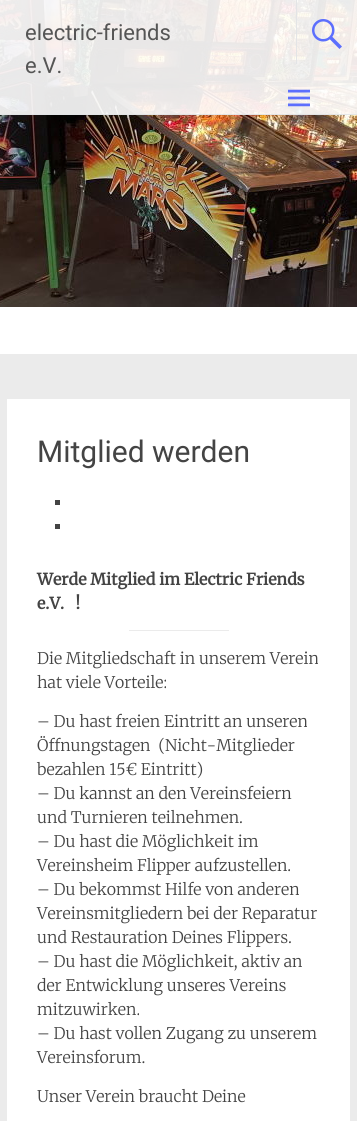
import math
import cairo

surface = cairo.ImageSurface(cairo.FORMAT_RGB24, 357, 1121)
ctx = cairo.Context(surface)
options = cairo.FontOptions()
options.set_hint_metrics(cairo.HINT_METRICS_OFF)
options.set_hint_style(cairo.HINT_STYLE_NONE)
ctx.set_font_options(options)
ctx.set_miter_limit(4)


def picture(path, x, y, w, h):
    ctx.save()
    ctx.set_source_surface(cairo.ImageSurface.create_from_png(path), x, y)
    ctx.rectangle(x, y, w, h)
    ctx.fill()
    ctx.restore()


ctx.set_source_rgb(1, 1, 1)
ctx.paint()
picture("img1.png", 0, 0, 357, 307)
ctx.set_source_rgba(1, 1, 1, 0.9)
ctx.rectangle(0, 0, 357, 115)
ctx.fill()
ctx.set_source_rgba(0.882, 0.894, 0.902, 0.9)
ctx.rectangle(0, 114, 357, 1)
ctx.fill()
ctx.select_font_face("Roboto")
ctx.set_font_size(22)
ctx.set_source_rgb(0.333, 0.333, 0.333)
ctx.move_to(25, 40)
ctx.show_text("electric-friends")
ctx.move_to(25, 73)
ctx.show_text("e.V.")
ctx.set_source_rgba(0.882, 0.894, 0.902, 0.9)
ctx.rectangle(296, 0, 1, 64)
ctx.fill()
picture("img2.png", 312, 19, 30, 30)
picture("img3.png", 288, 89, 22, 18)
ctx.set_source_rgb(0.918, 0.918, 0.918)
ctx.rectangle(0, 354, 357, 767)
ctx.fill()
ctx.set_source_rgb(1, 1, 1)
ctx.rectangle(7, 399, 343, 722)
ctx.fill()
ctx.set_font_size(30)
ctx.set_source_rgb(0.267, 0.267, 0.267)
ctx.move_to(37, 462)
ctx.show_text("Mitglied werden")
ctx.rectangle(55, 500, 5, 5)
ctx.fill()
ctx.rectangle(55, 524, 5, 5)
ctx.fill()
ctx.select_font_face("Merriweather", cairo.FONT_SLANT_NORMAL, cairo.FONT_WEIGHT_BOLD)
ctx.set_font_size(16)
ctx.move_to(37, 585)
ctx.show_text("Werde Mitglied im Electric Friends")
ctx.move_to(37, 609)
ctx.show_text("e.V.   !")
ctx.set_source_rgb(0.918, 0.918, 0.918)
ctx.rectangle(129, 630, 100, 1)
ctx.fill()
ctx.select_font_face("Merriweather Light")
ctx.set_source_rgb(0.267, 0.267, 0.267)
ctx.move_to(37, 664)
ctx.show_text("Die Mitgliedschaft in unserem Verein")
ctx.move_to(37, 688)
ctx.show_text("hat viele Vorteile:")
ctx.move_to(37, 727)
ctx.show_text("– Du hast freien Eintritt an unseren")
ctx.move_to(37, 751)
ctx.show_text("Öffnungstagen  (Nicht-Mitglieder")
ctx.move_to(37, 775)
ctx.show_text("bezahlen 15€ Eintritt)")
ctx.move_to(37, 799)
ctx.show_text("– Du kannst an den Vereinsfeiern")
ctx.move_to(37, 823)
ctx.show_text("und Turnieren teilnehmen.")
ctx.move_to(37, 847)
ctx.show_text("– Du hast die Möglichkeit im")
ctx.move_to(37, 871)
ctx.show_text("Vereinsheim Flipper aufzustellen.")
ctx.move_to(37, 895)
ctx.show_text("– Du bekommst Hilfe von anderen")
ctx.move_to(37, 919)
ctx.show_text("Vereinsmitgliedern bei der Reparatur")
ctx.move_to(37, 943)
ctx.show_text("und Restauration Deines Flippers.")
ctx.move_to(37, 967)
ctx.show_text("– Du hast die Möglichkeit, aktiv an")
ctx.move_to(37, 991)
ctx.show_text("der Entwicklung unseres Vereins")
ctx.move_to(37, 1015)
ctx.show_text("mitzuwirken.")
ctx.move_to(37, 1039)
ctx.show_text("– Du hast vollen Zugang zu unserem")
ctx.move_to(37, 1063)
ctx.show_text("Vereinsforum.")
ctx.move_to(37, 1102)
ctx.show_text("Unser Verein braucht Deine")
surface.write_to_png("page.png")
